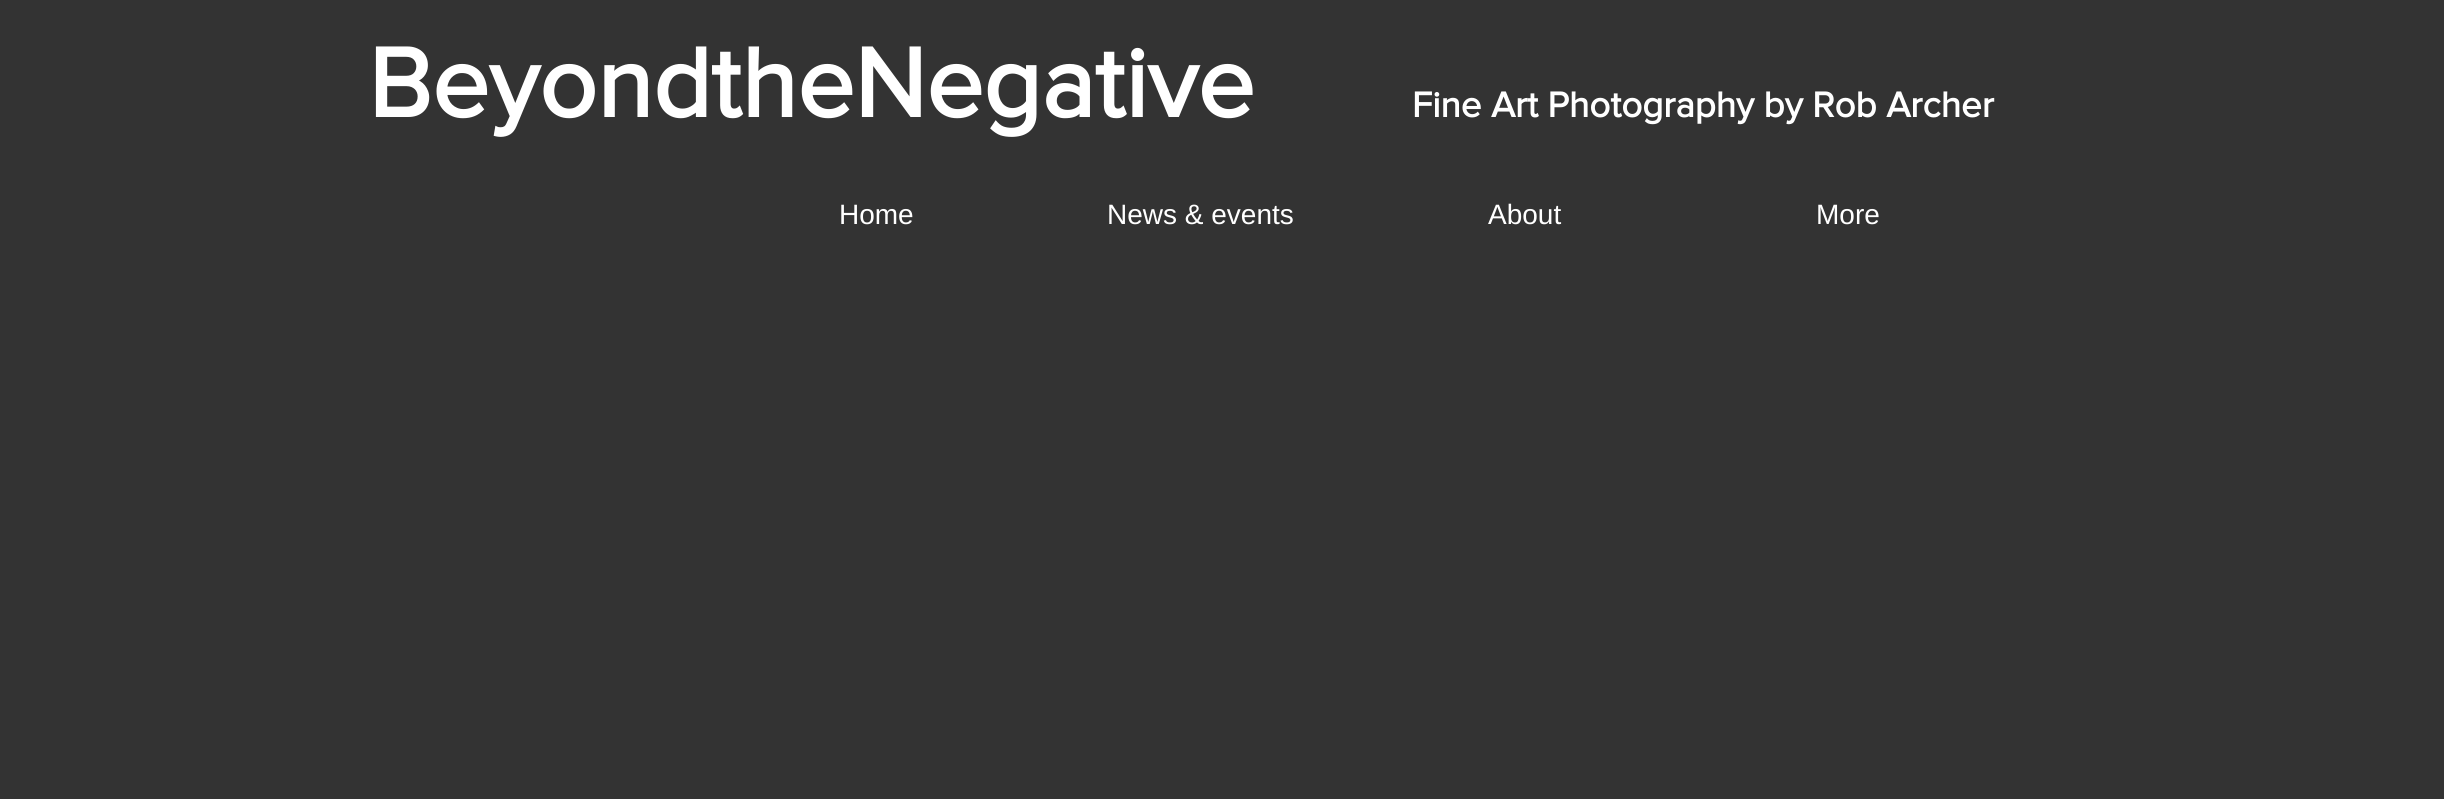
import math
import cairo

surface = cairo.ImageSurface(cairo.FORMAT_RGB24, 2444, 799)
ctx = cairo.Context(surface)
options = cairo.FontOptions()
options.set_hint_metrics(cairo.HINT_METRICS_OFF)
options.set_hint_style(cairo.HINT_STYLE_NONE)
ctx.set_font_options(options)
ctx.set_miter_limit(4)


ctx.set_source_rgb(0.2, 0.2, 0.2)
ctx.paint()
ctx.select_font_face("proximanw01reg", cairo.FONT_SLANT_NORMAL, cairo.FONT_WEIGHT_BOLD)
ctx.set_font_size(101.5)
ctx.set_source_rgb(1, 1, 1)
ctx.move_to(368, 117)
ctx.show_text("BeyondtheNegative")
ctx.set_font_size(36.75)
ctx.move_to(1412, 117)
ctx.show_text("Fine Art Photography by Rob Archer")
ctx.select_font_face("Liberation Sans")
ctx.set_font_size(28)
ctx.move_to(839, 224)
ctx.show_text("Home")
ctx.move_to(1107, 224)
ctx.show_text("News & events")
ctx.move_to(1488, 224)
ctx.show_text("About")
ctx.move_to(1816, 224)
ctx.show_text("More")
surface.write_to_png("page.png")
